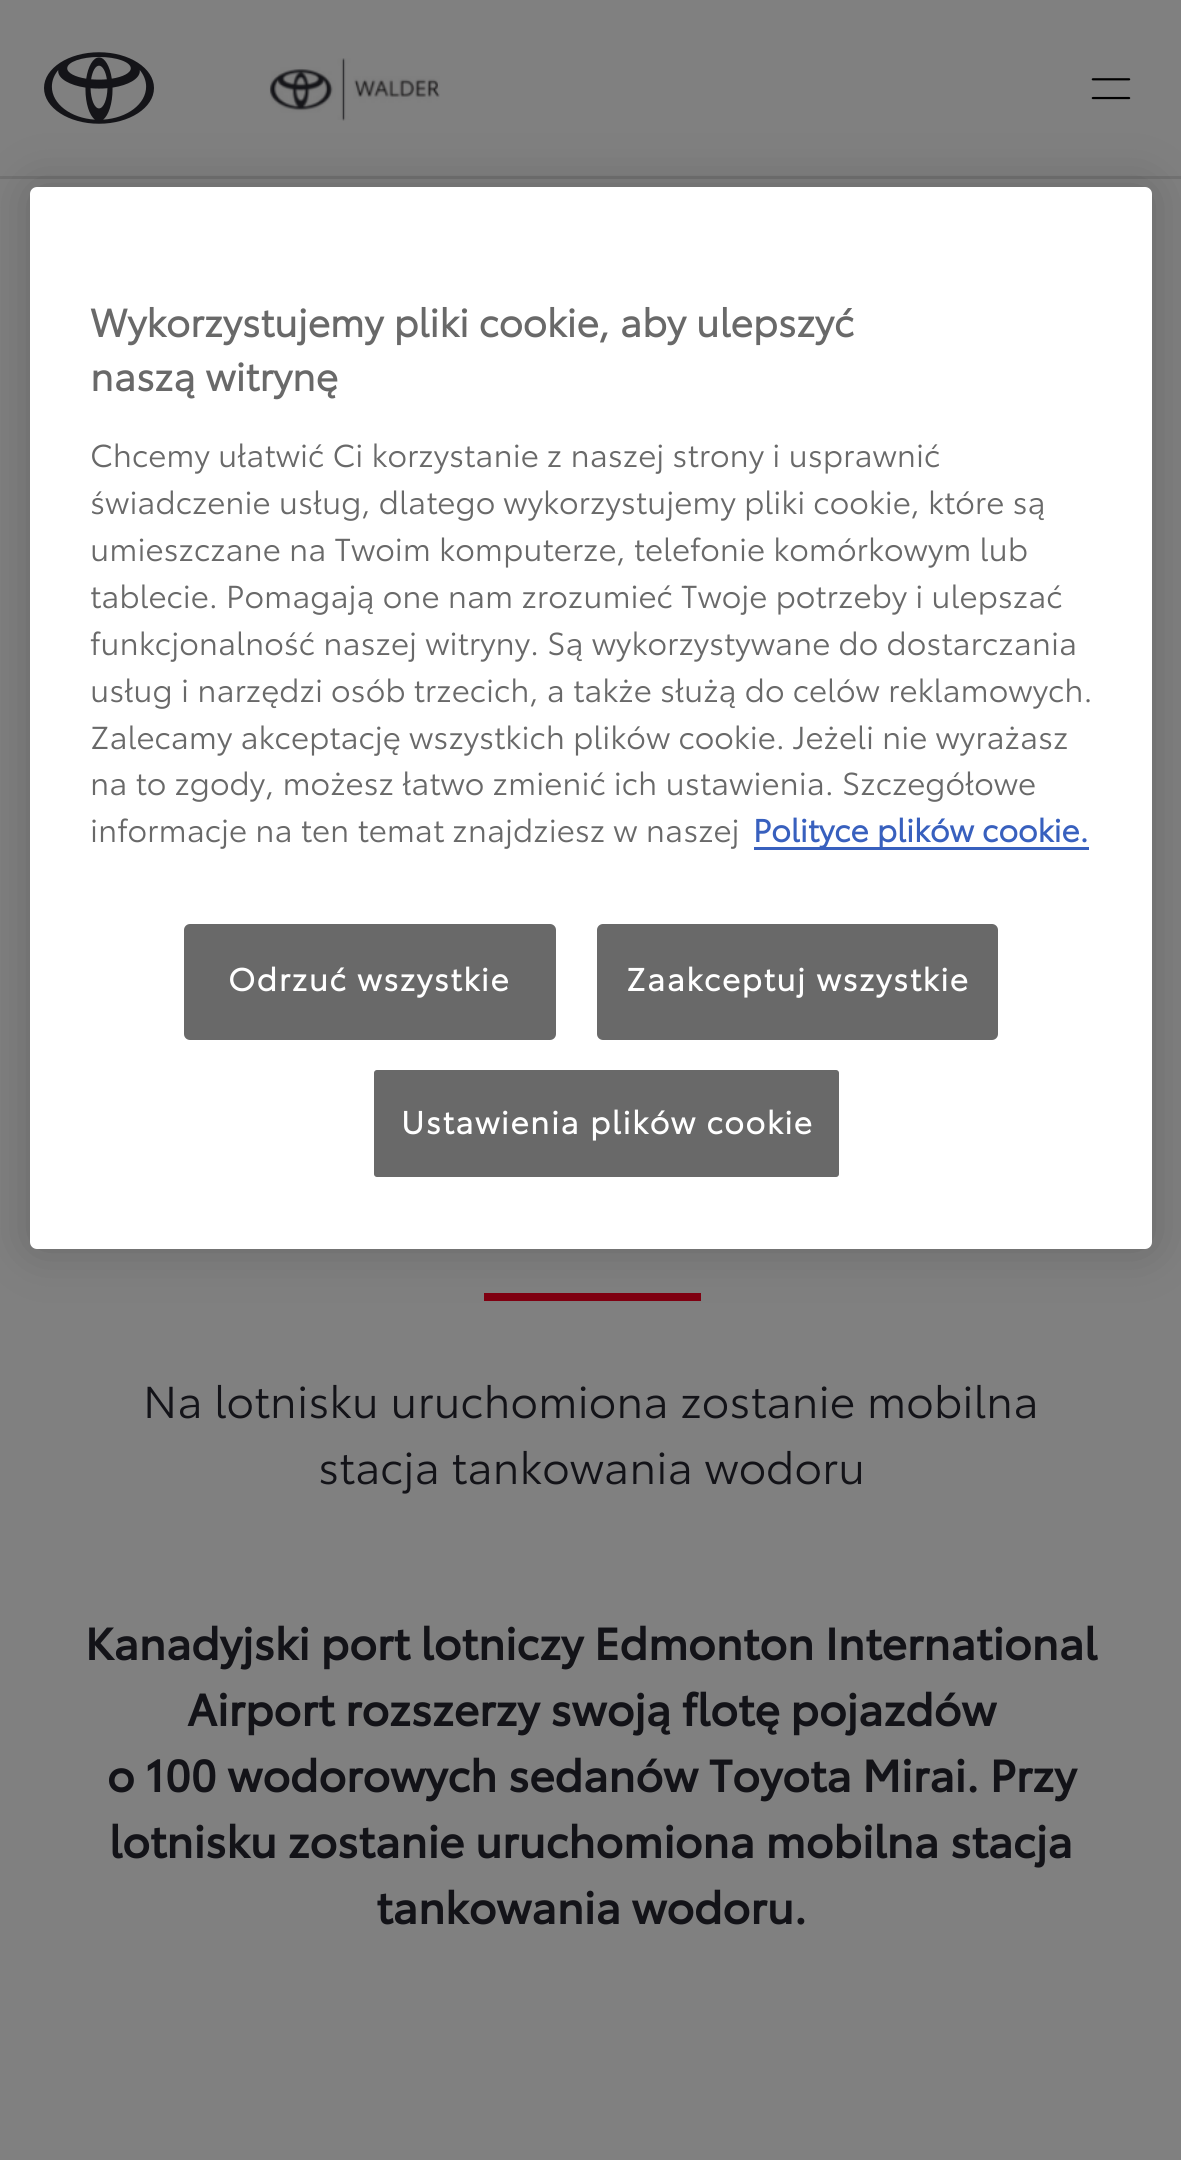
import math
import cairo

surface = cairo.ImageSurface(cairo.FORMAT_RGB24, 1181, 2160)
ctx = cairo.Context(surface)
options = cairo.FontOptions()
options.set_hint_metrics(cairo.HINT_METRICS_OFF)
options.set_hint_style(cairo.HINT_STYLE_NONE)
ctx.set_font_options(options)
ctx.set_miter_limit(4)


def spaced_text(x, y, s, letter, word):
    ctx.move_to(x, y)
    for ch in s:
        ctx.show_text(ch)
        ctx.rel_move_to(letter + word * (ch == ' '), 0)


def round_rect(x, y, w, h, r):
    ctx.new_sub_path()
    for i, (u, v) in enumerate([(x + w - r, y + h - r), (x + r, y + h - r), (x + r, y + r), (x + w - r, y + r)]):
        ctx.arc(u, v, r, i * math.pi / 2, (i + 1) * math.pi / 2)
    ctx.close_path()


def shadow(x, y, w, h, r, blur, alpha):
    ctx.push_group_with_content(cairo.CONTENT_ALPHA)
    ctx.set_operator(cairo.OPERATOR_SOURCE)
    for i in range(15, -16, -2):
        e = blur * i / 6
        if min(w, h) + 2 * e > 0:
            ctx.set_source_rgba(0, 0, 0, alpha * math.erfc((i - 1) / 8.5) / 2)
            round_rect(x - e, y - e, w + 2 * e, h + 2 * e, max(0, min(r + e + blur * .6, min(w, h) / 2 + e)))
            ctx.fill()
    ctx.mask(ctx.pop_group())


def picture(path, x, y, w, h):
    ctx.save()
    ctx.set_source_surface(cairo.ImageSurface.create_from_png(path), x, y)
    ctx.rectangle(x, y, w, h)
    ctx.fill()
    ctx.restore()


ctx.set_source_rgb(0.502, 0.502, 0.502)
ctx.paint()
picture("img1.png", 44, 52, 110, 72)
picture("img2.png", 269, 58, 171, 63)
picture("img3.png", 1091, 78, 40, 22)
ctx.set_source_rgb(0.447, 0.447, 0.447)
ctx.rectangle(0, 176, 1181, 3)
ctx.fill()
ctx.set_source_rgb(0.502, 0, 0.067)
ctx.rectangle(484, 1293, 217, 8)
ctx.fill()
ctx.set_source_rgb(0, 0, 0)
shadow(30, 187, 1122, 1062, 7, 25, 0.2)
ctx.set_source_rgb(1, 1, 1)
round_rect(30, 187, 1122, 1062, 7)
ctx.fill()
ctx.select_font_face("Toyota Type", cairo.FONT_SLANT_NORMAL, cairo.FONT_WEIGHT_BOLD)
ctx.set_font_size(38.5)
ctx.set_source_rgb(0.412, 0.412, 0.412)
ctx.move_to(90, 337)
ctx.show_text("Wykorzystujemy pliki cookie, aby ulepszyć")
ctx.move_to(90, 391)
ctx.show_text("naszą witrynę")
ctx.select_font_face("Toyota Type")
ctx.set_font_size(31.3)
ctx.move_to(90, 467)
ctx.show_text("Chcemy ułatwić Ci korzystanie z naszej strony i usprawnić")
ctx.move_to(90, 514)
ctx.show_text("świadczenie usług, dlatego wykorzystujemy pliki cookie, które są")
ctx.move_to(90, 561)
ctx.show_text("umieszczane na Twoim komputerze, telefonie komórkowym lub")
ctx.move_to(90, 608)
ctx.show_text("tablecie. Pomagają one nam zrozumieć Twoje potrzeby i ulepszać")
ctx.move_to(90, 655)
ctx.show_text("funkcjonalność naszej witryny. Są wykorzystywane do dostarczania")
ctx.move_to(90, 702)
ctx.show_text("usług i narzędzi osób trzecich, a także służą do celów reklamowych.")
ctx.move_to(90, 749)
ctx.show_text("Zalecamy akceptację wszystkich plików cookie. Jeżeli nie wyrażasz")
ctx.move_to(90, 795)
ctx.show_text("na to zgody, możesz łatwo zmienić ich ustawienia. Szczegółowe")
ctx.move_to(90, 842)
ctx.show_text("informacje na ten temat znajdziesz w naszej")
ctx.set_source_rgb(0.22, 0.376, 0.745)
ctx.rectangle(754, 847, 335, 3)
ctx.fill()
ctx.select_font_face("Toyota Type", cairo.FONT_SLANT_NORMAL, cairo.FONT_WEIGHT_BOLD)
ctx.move_to(753, 842)
ctx.show_text("Polityce plików cookie.")
ctx.set_source_rgb(0.412, 0.412, 0.412)
round_rect(185.5, 925.5, 369, 113, 4.5)
ctx.fill_preserve()
ctx.set_line_width(3)
ctx.stroke()
ctx.set_source_rgb(1, 1, 1)
spaced_text(228, 991, "Odrzuć wszystkie", 1.6, 0)
ctx.set_source_rgb(0.412, 0.412, 0.412)
round_rect(598.5, 925.5, 398, 113, 4.5)
ctx.fill_preserve()
ctx.stroke()
ctx.set_source_rgb(1, 1, 1)
spaced_text(626, 991, "Zaakceptuj wszystkie", 1.6, 0)
ctx.set_source_rgb(0.412, 0.412, 0.412)
round_rect(372.5, 1068.5, 468, 110, 4.5)
ctx.fill_preserve()
ctx.set_source_rgb(1, 1, 1)
ctx.stroke()
spaced_text(401, 1134, "Ustawienia plików cookie", 1.6, 0)
ctx.select_font_face("Toyota Type")
ctx.set_font_size(44)
ctx.set_source_rgb(0.078, 0.078, 0.094)
ctx.move_to(143, 1418)
ctx.show_text("Na lotnisku uruchomiona zostanie mobilna")
ctx.move_to(318, 1484)
ctx.show_text("stacja tankowania wodoru")
ctx.select_font_face("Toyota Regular", cairo.FONT_SLANT_NORMAL, cairo.FONT_WEIGHT_BOLD)
ctx.move_to(85, 1660)
ctx.show_text("Kanadyjski port lotniczy Edmonton International")
ctx.move_to(187, 1726)
ctx.show_text("Airport rozszerzy swoją flotę pojazdów")
ctx.move_to(107, 1792)
ctx.show_text("o 100 wodorowych sedanów Toyota Mirai. Przy")
ctx.move_to(109, 1858)
ctx.show_text("lotnisku zostanie uruchomiona mobilna stacja")
ctx.move_to(376, 1924)
ctx.show_text("tankowania wodoru.")
surface.write_to_png("page.png")
